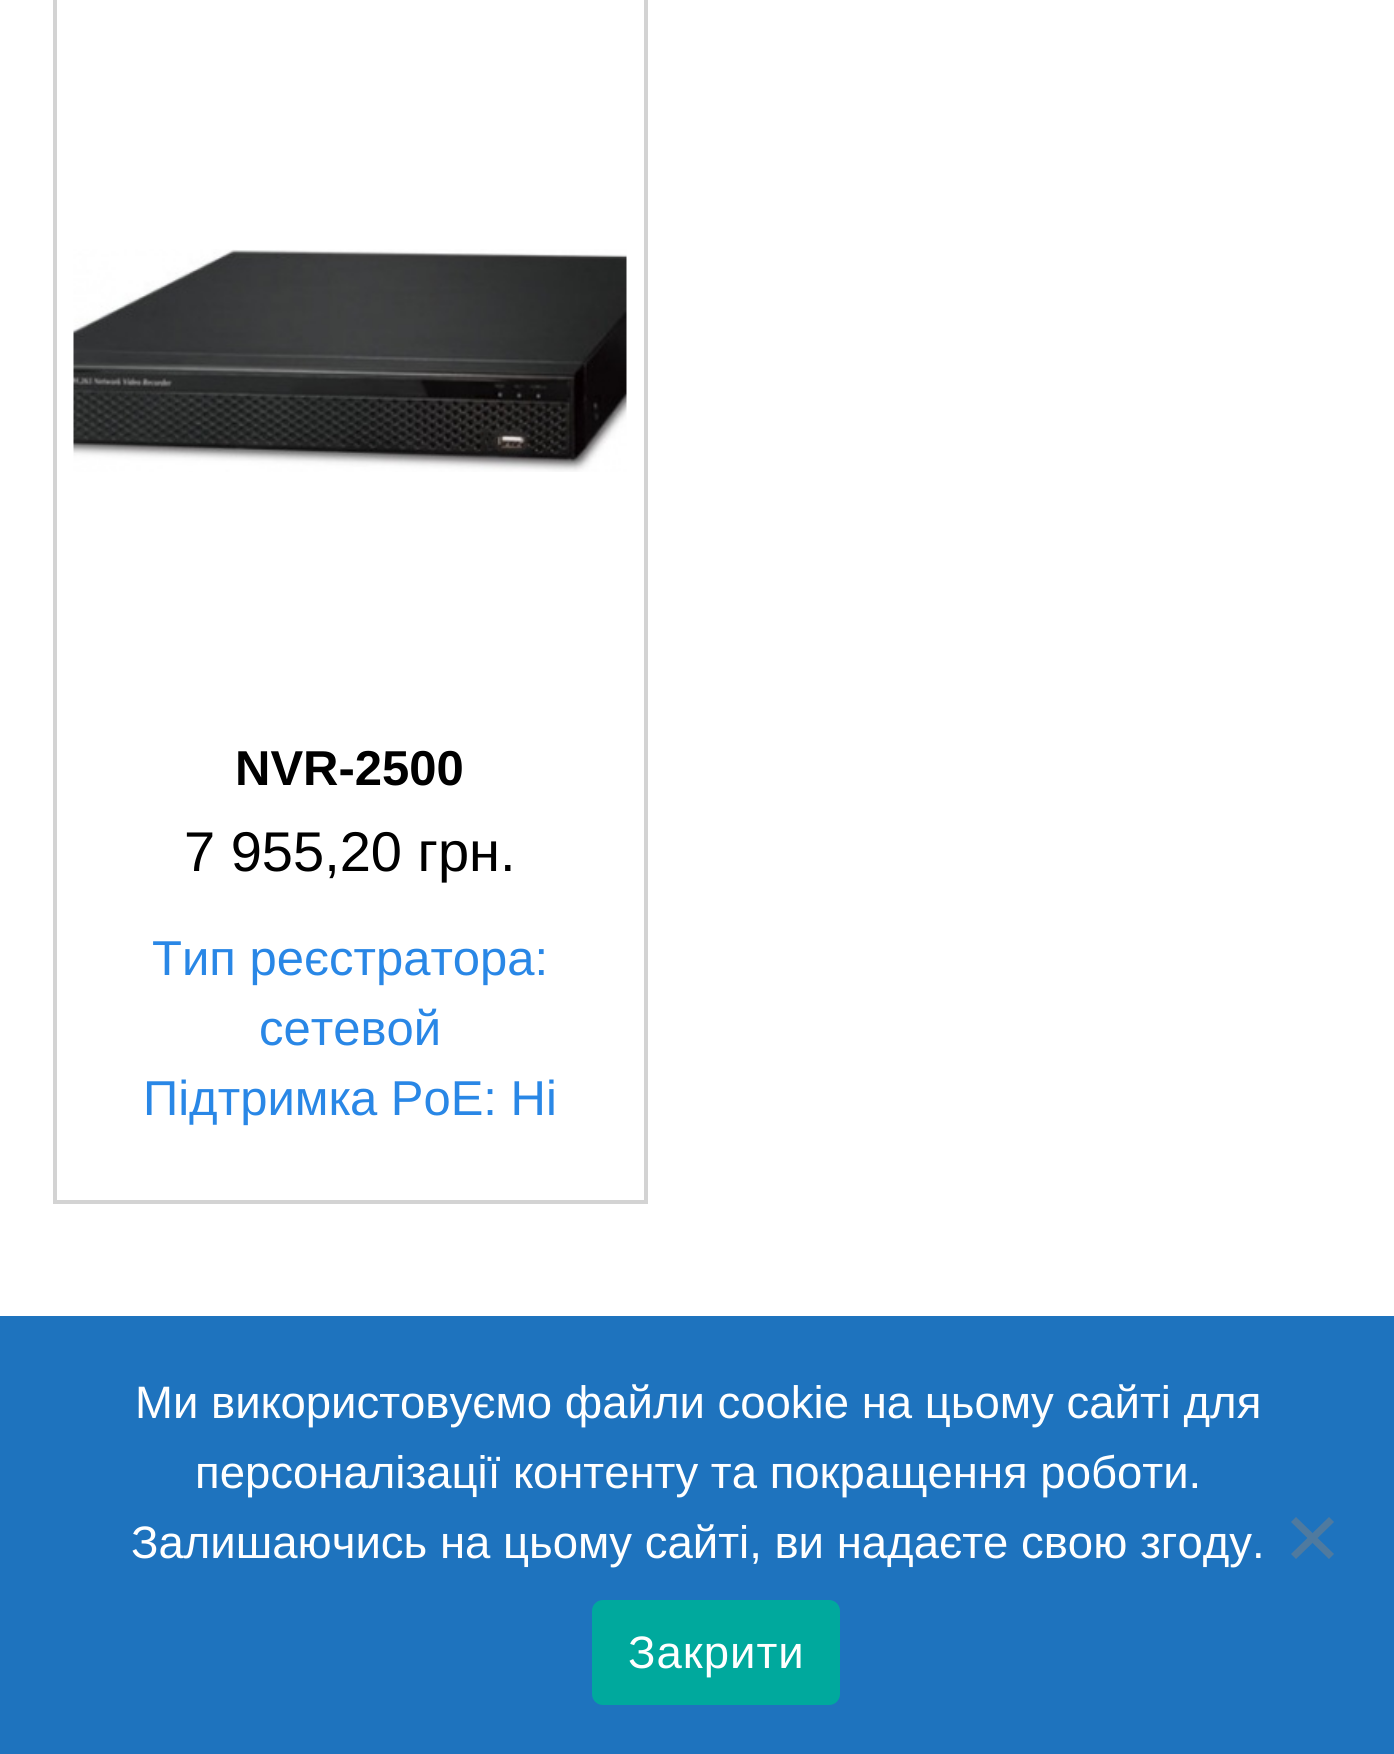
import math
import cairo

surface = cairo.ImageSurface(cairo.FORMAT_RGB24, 1394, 1754)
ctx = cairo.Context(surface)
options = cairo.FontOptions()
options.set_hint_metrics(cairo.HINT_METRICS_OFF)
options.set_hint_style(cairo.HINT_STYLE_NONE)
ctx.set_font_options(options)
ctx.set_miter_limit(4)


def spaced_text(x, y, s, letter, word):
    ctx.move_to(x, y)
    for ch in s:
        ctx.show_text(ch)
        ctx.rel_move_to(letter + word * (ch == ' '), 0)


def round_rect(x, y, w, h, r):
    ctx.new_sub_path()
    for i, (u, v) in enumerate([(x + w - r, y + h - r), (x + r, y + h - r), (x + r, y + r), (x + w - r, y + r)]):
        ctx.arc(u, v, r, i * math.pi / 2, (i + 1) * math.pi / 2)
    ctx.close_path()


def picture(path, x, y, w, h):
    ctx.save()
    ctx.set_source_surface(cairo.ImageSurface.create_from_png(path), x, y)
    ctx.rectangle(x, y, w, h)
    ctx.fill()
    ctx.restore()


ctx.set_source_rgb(1, 1, 1)
ctx.paint()
ctx.rectangle(55, -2, 591, 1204)
ctx.set_source_rgb(0.827, 0.827, 0.827)
ctx.set_line_width(4)
ctx.stroke()
picture("img1.png", 73, 249, 554, 223)
ctx.select_font_face("Liberation Sans", cairo.FONT_SLANT_NORMAL, cairo.FONT_WEIGHT_BOLD)
ctx.set_font_size(49)
ctx.set_source_rgb(0, 0, 0)
ctx.move_to(235, 785)
ctx.show_text("NVR-2500")
ctx.select_font_face("Liberation Sans")
ctx.set_font_size(56)
ctx.move_to(184, 871)
ctx.show_text("7 955,20 грн.")
ctx.set_font_size(49)
ctx.set_source_rgb(0.161, 0.529, 0.902)
ctx.move_to(152, 975)
ctx.show_text("Тип реєстратора:")
ctx.move_to(259, 1045)
ctx.show_text("сетевой")
ctx.move_to(143, 1115)
ctx.show_text("Підтримка PoE: Ні")
ctx.set_source_rgb(0.118, 0.451, 0.745)
ctx.rectangle(0, 1316, 1394, 438)
ctx.fill()
ctx.set_font_size(45.5)
ctx.set_source_rgb(1, 1, 1)
ctx.move_to(135, 1418)
ctx.show_text("Ми використовуємо файли cookie на цьому сайті для")
ctx.move_to(195, 1488)
ctx.show_text("персоналізації контенту та покращення роботи.")
ctx.move_to(131, 1558)
ctx.show_text("Залишаючись на цьому сайті, ви надаєте свою згоду.")
ctx.set_source_rgb(0.31, 0.478, 0.624)
ctx.new_path()
ctx.move_to(1329, 1517)
ctx.line_to(1334, 1522)
ctx.line_to(1296, 1559)
ctx.line_to(1291, 1554)
ctx.close_path()
ctx.fill()
ctx.new_path()
ctx.move_to(1291, 1522)
ctx.line_to(1296, 1517)
ctx.line_to(1334, 1554)
ctx.line_to(1329, 1559)
ctx.close_path()
ctx.fill()
ctx.set_source_rgb(0, 0.663, 0.616)
round_rect(592, 1600, 248, 105, 11)
ctx.fill()
ctx.set_source_rgb(1, 1, 1)
spaced_text(628, 1668, "Закрити", 1, 0)
surface.write_to_png("page.png")
